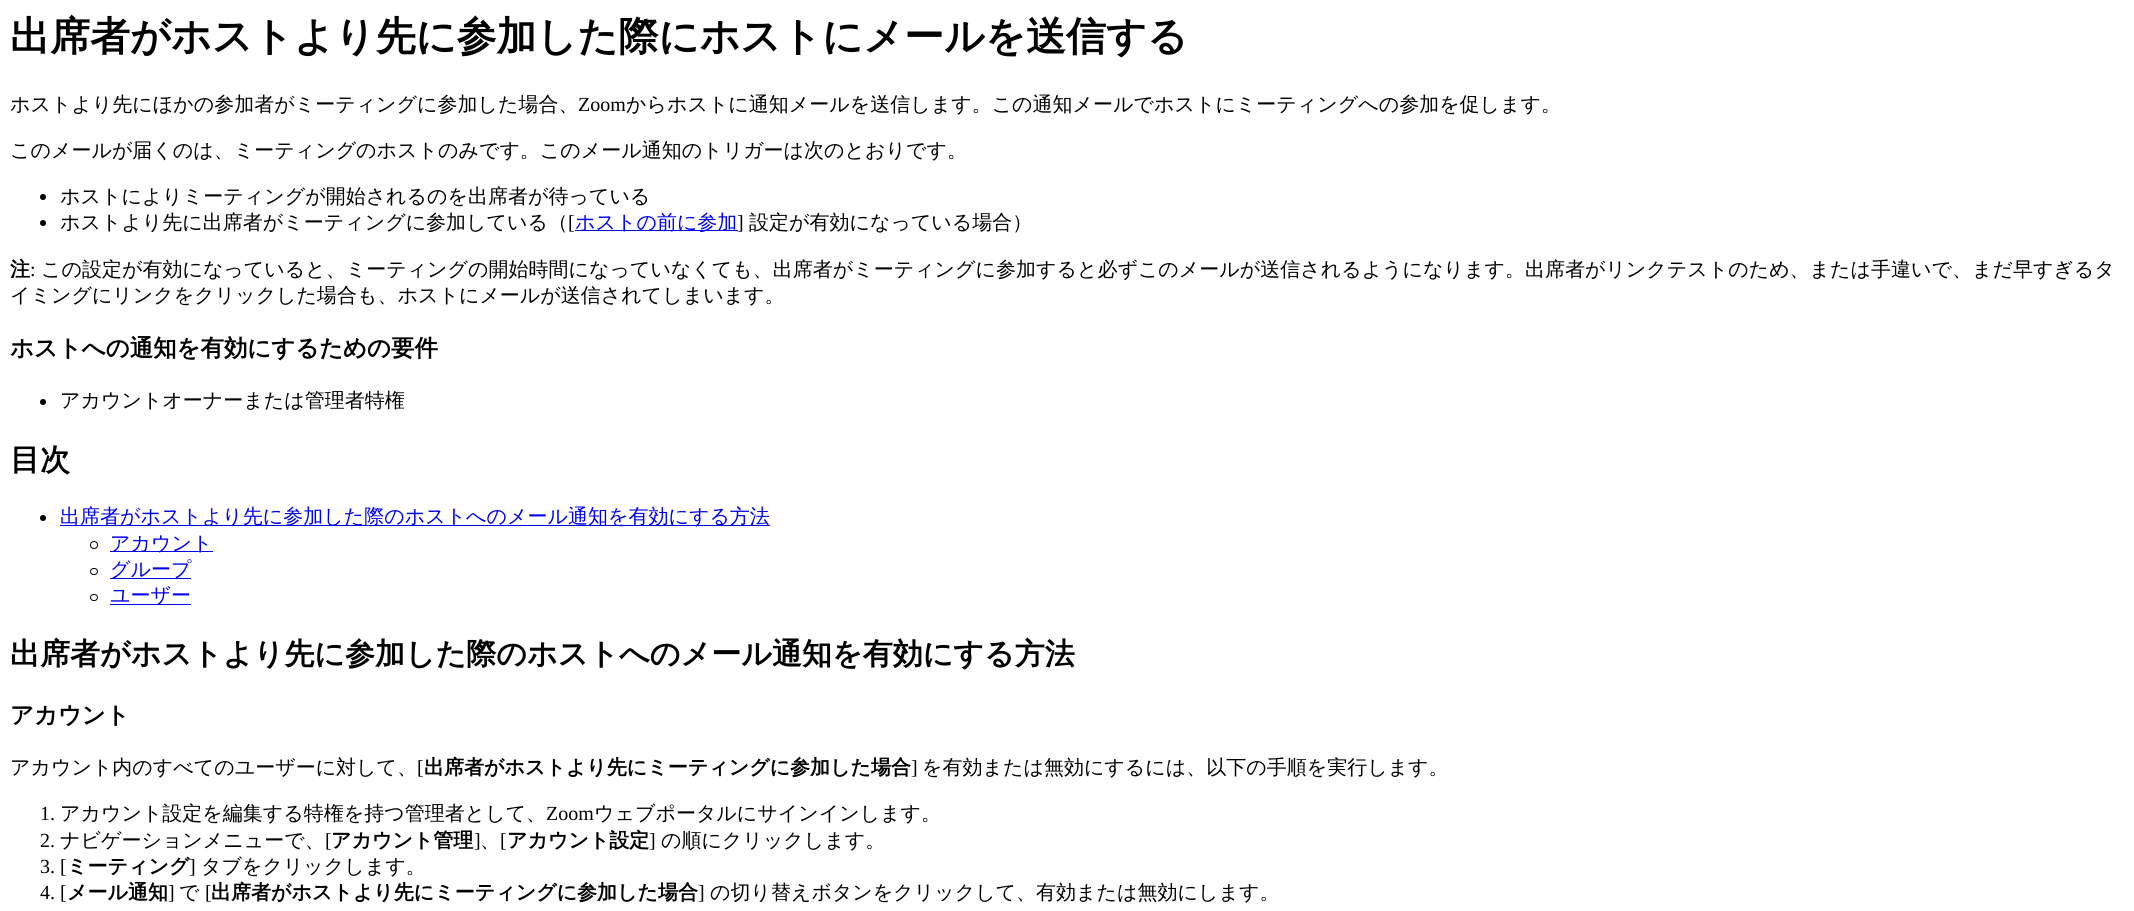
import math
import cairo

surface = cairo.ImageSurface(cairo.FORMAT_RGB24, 2134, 911)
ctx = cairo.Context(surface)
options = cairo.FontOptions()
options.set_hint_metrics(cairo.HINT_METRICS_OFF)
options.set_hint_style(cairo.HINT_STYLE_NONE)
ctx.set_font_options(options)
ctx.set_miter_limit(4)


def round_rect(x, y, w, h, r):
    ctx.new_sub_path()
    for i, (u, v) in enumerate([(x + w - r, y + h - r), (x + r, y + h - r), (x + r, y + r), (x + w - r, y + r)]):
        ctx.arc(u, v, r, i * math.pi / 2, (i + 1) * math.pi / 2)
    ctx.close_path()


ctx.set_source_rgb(1, 1, 1)
ctx.paint()
ctx.select_font_face("WenQuanYi Zen Hei", cairo.FONT_SLANT_NORMAL, cairo.FONT_WEIGHT_BOLD)
ctx.set_font_size(40)
ctx.set_source_rgb(0, 0, 0)
ctx.move_to(10, 50)
ctx.show_text("出席者がホストより先に参加した際にホストにメールを送信する")
ctx.select_font_face("WenQuanYi Zen Hei Medium")
ctx.set_font_size(20)
ctx.move_to(10, 111)
ctx.show_text("ホストより先にほかの参加者がミーティングに参加した場合、")
ctx.select_font_face("Liberation Serif")
ctx.move_to(578, 111)
ctx.show_text("Zoom")
ctx.select_font_face("WenQuanYi Zen Hei Medium")
ctx.move_to(626, 111)
ctx.show_text("からホストに通知メールを送信します。この通知メールでホストにミーティングへの参加を促します。")
ctx.move_to(10, 157)
ctx.show_text("このメールが届くのは、ミーティングのホストのみです。このメール通知のトリガーは次のとおりです。")
ctx.new_path()
ctx.arc(43, 197, 3, 0, 2 * math.pi)
ctx.fill()
ctx.move_to(60, 203)
ctx.show_text("ホストによりミーティングが開始されるのを出席者が待っている")
ctx.new_path()
ctx.arc(43, 223, 3, 0, 2 * math.pi)
ctx.fill()
ctx.move_to(60, 229)
ctx.show_text("ホストより先に出席者がミーティングに参加している（")
ctx.select_font_face("Liberation Serif")
ctx.move_to(568, 229)
ctx.show_text("[")
ctx.set_source_rgb(0, 0, 0.933)
ctx.rectangle(575, 230, 163, 1)
ctx.fill()
ctx.select_font_face("WenQuanYi Zen Hei Medium")
ctx.move_to(575, 229)
ctx.show_text("ホストの前に参加")
ctx.select_font_face("Liberation Serif")
ctx.set_source_rgb(0, 0, 0)
ctx.move_to(737, 229)
ctx.show_text("]")
ctx.select_font_face("WenQuanYi Zen Hei Medium")
ctx.move_to(749, 229)
ctx.show_text("設定が有効になっている場合）")
ctx.select_font_face("WenQuanYi Zen Hei", cairo.FONT_SLANT_NORMAL, cairo.FONT_WEIGHT_BOLD)
ctx.move_to(10, 276)
ctx.show_text("注")
ctx.select_font_face("Liberation Serif")
ctx.move_to(30, 276)
ctx.show_text(":")
ctx.select_font_face("WenQuanYi Zen Hei Medium")
ctx.move_to(41, 276)
ctx.show_text("この設定が有効になっていると、ミーティングの開始時間になっていなくても、出席者がミーティングに参加すると必ずこのメールが送信されるようになります。出席者がリンクテストのため、または手違いで、まだ早すぎるタ")
ctx.move_to(10, 302)
ctx.show_text("イミングにリンクをクリックした場合も、ホストにメールが送信されてしまいます。")
ctx.select_font_face("WenQuanYi Zen Hei", cairo.FONT_SLANT_NORMAL, cairo.FONT_WEIGHT_BOLD)
ctx.set_font_size(23.4)
ctx.move_to(10, 356)
ctx.show_text("ホストへの通知を有効にするための要件")
ctx.new_path()
ctx.arc(43, 402, 3, 0, 2 * math.pi)
ctx.fill()
ctx.select_font_face("WenQuanYi Zen Hei Medium")
ctx.set_font_size(20)
ctx.move_to(60, 407)
ctx.show_text("アカウントオーナーまたは管理者特権")
ctx.select_font_face("WenQuanYi Zen Hei", cairo.FONT_SLANT_NORMAL, cairo.FONT_WEIGHT_BOLD)
ctx.set_font_size(30)
ctx.move_to(10, 470)
ctx.show_text("目次")
ctx.new_path()
ctx.arc(43, 518, 3, 0, 2 * math.pi)
ctx.fill()
ctx.set_source_rgb(0, 0, 0.933)
ctx.rectangle(60, 525, 710, 1)
ctx.fill()
ctx.select_font_face("WenQuanYi Zen Hei Medium")
ctx.set_font_size(20)
ctx.move_to(60, 523)
ctx.show_text("出席者がホストより先に参加した際のホストへのメール通知を有効にする方法")
ctx.new_path()
ctx.arc(94, 545, 3.5, 0, 2 * math.pi)
ctx.set_source_rgb(0, 0, 0)
ctx.set_line_width(1)
ctx.stroke()
ctx.set_source_rgb(0, 0, 0.933)
ctx.rectangle(110, 551, 103, 1)
ctx.fill()
ctx.move_to(110, 550)
ctx.show_text("アカウント")
round_rect(90.5, 568.5, 7, 6, 3)
ctx.set_source_rgb(0, 0, 0)
ctx.stroke()
ctx.set_source_rgb(0, 0, 0.933)
ctx.rectangle(110, 578, 81, 1)
ctx.fill()
ctx.move_to(110, 576)
ctx.show_text("グループ")
round_rect(90.5, 594.5, 7, 6, 3)
ctx.set_source_rgb(0, 0, 0)
ctx.stroke()
ctx.set_source_rgb(0, 0, 0.933)
ctx.rectangle(110, 604, 81, 1)
ctx.fill()
ctx.move_to(110, 602)
ctx.show_text("ユーザー")
ctx.select_font_face("WenQuanYi Zen Hei", cairo.FONT_SLANT_NORMAL, cairo.FONT_WEIGHT_BOLD)
ctx.set_font_size(30)
ctx.set_source_rgb(0, 0, 0)
ctx.move_to(10, 664)
ctx.show_text("出席者がホストより先に参加した際のホストへのメール通知を有効にする方法")
ctx.set_font_size(23.4)
ctx.move_to(10, 723)
ctx.show_text("アカウント")
ctx.select_font_face("WenQuanYi Zen Hei Medium")
ctx.set_font_size(20)
ctx.move_to(10, 774)
ctx.show_text("アカウント内のすべてのユーザーに対して、")
ctx.select_font_face("Liberation Serif")
ctx.move_to(417, 774)
ctx.show_text("[")
ctx.select_font_face("WenQuanYi Zen Hei", cairo.FONT_SLANT_NORMAL, cairo.FONT_WEIGHT_BOLD)
ctx.move_to(424, 774)
ctx.show_text("出席者がホストより先にミーティングに参加した場合")
ctx.select_font_face("Liberation Serif")
ctx.move_to(911, 774)
ctx.show_text("]")
ctx.select_font_face("WenQuanYi Zen Hei Medium")
ctx.move_to(922, 774)
ctx.show_text("を有効または無効にするには、以下の手順を実行します。")
ctx.select_font_face("Liberation Serif")
ctx.move_to(40, 820)
ctx.show_text("1.")
ctx.select_font_face("WenQuanYi Zen Hei Medium")
ctx.move_to(60, 820)
ctx.show_text("アカウント設定を編集する特権を持つ管理者として、")
ctx.select_font_face("Liberation Serif")
ctx.move_to(546, 820)
ctx.show_text("Zoom")
ctx.select_font_face("WenQuanYi Zen Hei Medium")
ctx.move_to(594, 820)
ctx.show_text("ウェブポータルにサインインします。")
ctx.select_font_face("Liberation Serif")
ctx.move_to(40, 847)
ctx.show_text("2.")
ctx.select_font_face("WenQuanYi Zen Hei Medium")
ctx.move_to(60, 847)
ctx.show_text("ナビゲーションメニューで、")
ctx.select_font_face("Liberation Serif")
ctx.move_to(325, 847)
ctx.show_text("[")
ctx.select_font_face("WenQuanYi Zen Hei", cairo.FONT_SLANT_NORMAL, cairo.FONT_WEIGHT_BOLD)
ctx.move_to(331, 847)
ctx.show_text("アカウント管理")
ctx.select_font_face("Liberation Serif")
ctx.move_to(474, 847)
ctx.show_text("]")
ctx.select_font_face("WenQuanYi Zen Hei Medium")
ctx.move_to(480, 847)
ctx.show_text("、")
ctx.select_font_face("Liberation Serif")
ctx.move_to(500, 847)
ctx.show_text("[")
ctx.select_font_face("WenQuanYi Zen Hei", cairo.FONT_SLANT_NORMAL, cairo.FONT_WEIGHT_BOLD)
ctx.move_to(507, 847)
ctx.show_text("アカウント設定")
ctx.select_font_face("Liberation Serif")
ctx.move_to(649, 847)
ctx.show_text("]")
ctx.select_font_face("WenQuanYi Zen Hei Medium")
ctx.move_to(661, 847)
ctx.show_text("の順にクリックします。")
ctx.select_font_face("Liberation Serif")
ctx.move_to(40, 873)
ctx.show_text("3. [")
ctx.select_font_face("WenQuanYi Zen Hei", cairo.FONT_SLANT_NORMAL, cairo.FONT_WEIGHT_BOLD)
ctx.move_to(67, 873)
ctx.show_text("ミーティング")
ctx.select_font_face("Liberation Serif")
ctx.move_to(189, 873)
ctx.show_text("]")
ctx.select_font_face("WenQuanYi Zen Hei Medium")
ctx.move_to(201, 873)
ctx.show_text("タブをクリックします。")
ctx.select_font_face("Liberation Serif")
ctx.move_to(40, 899)
ctx.show_text("4. [")
ctx.select_font_face("WenQuanYi Zen Hei", cairo.FONT_SLANT_NORMAL, cairo.FONT_WEIGHT_BOLD)
ctx.move_to(67, 899)
ctx.show_text("メール通知")
ctx.select_font_face("Liberation Serif")
ctx.move_to(168, 899)
ctx.show_text("]")
ctx.select_font_face("WenQuanYi Zen Hei Medium")
ctx.move_to(179, 899)
ctx.show_text("で")
ctx.select_font_face("Liberation Serif")
ctx.move_to(205, 899)
ctx.show_text("[")
ctx.select_font_face("WenQuanYi Zen Hei", cairo.FONT_SLANT_NORMAL, cairo.FONT_WEIGHT_BOLD)
ctx.move_to(211, 899)
ctx.show_text("出席者がホストより先にミーティングに参加した場合")
ctx.select_font_face("Liberation Serif")
ctx.move_to(698, 899)
ctx.show_text("]")
ctx.select_font_face("WenQuanYi Zen Hei Medium")
ctx.move_to(710, 899)
ctx.show_text("の切り替えボタンをクリックして、有効または無効にします。")
surface.write_to_png("page.png")
